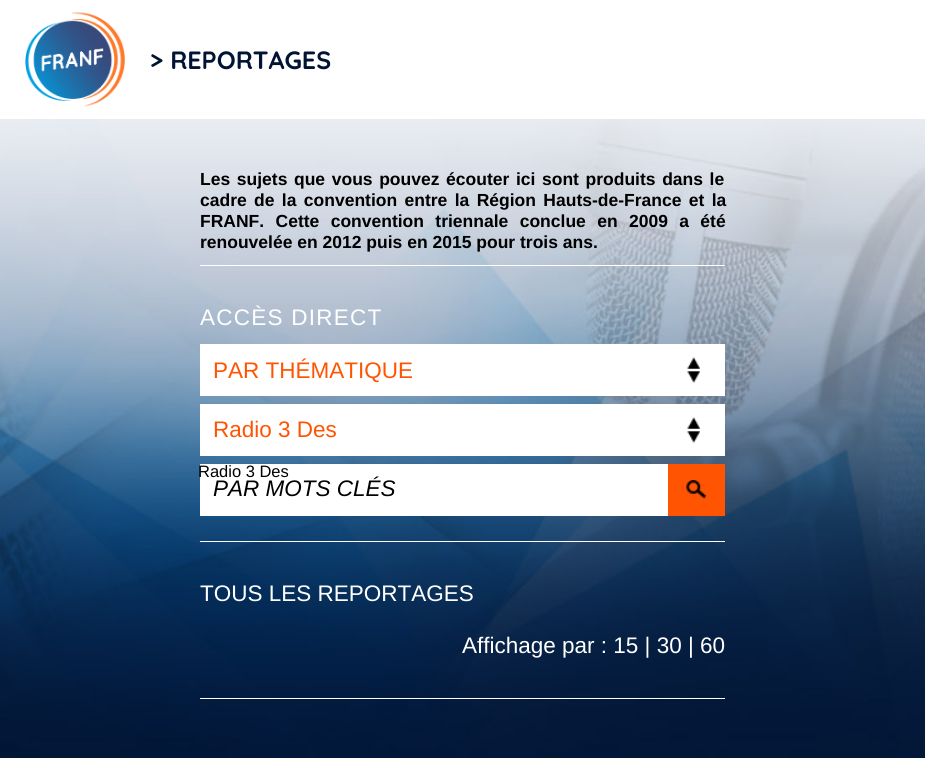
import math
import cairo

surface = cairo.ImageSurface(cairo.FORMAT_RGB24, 925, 758)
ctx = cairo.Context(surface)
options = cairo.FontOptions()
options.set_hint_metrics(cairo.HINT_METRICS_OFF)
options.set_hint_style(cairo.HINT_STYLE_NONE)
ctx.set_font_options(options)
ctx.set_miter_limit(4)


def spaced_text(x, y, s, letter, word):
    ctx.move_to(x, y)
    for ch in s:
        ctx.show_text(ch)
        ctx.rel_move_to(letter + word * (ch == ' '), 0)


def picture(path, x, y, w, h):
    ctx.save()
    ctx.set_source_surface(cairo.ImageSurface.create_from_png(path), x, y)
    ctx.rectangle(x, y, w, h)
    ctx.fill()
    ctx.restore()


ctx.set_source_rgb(1, 1, 1)
ctx.paint()
picture("img1.png", 0, 119, 925, 639)
picture("img2.png", 25, 12, 100, 95)
ctx.select_font_face("Quicksand", cairo.FONT_SLANT_NORMAL, cairo.FONT_WEIGHT_BOLD)
ctx.set_font_size(25)
ctx.set_source_rgb(0.004, 0.082, 0.2)
ctx.move_to(150, 69)
ctx.show_text("> REPORTAGES")
ctx.select_font_face("Liberation Sans", cairo.FONT_SLANT_NORMAL, cairo.FONT_WEIGHT_BOLD)
ctx.set_font_size(17.5)
ctx.set_source_rgb(0, 0, 0)
spaced_text(200, 185, "Les sujets que vous pouvez écouter ici sont produits dans le", 0, 1.75)
spaced_text(200, 206, "cadre de la convention entre la Région Hauts-de-France et la", 0, 2.5)
spaced_text(200, 227, "FRANF. Cette convention triennale conclue en 2009 a été", 0, 6.5)
ctx.move_to(200, 248)
ctx.show_text("renouvelée en 2012 puis en 2015 pour trois ans.")
ctx.set_source_rgb(1, 1, 1)
ctx.rectangle(200, 265, 525, 1)
ctx.fill()
ctx.rectangle(200, 541, 525, 1)
ctx.fill()
ctx.select_font_face("Liberation Sans")
ctx.set_font_size(22.5)
spaced_text(200, 325, "ACCÈS DIRECT", 1.25, 0)
ctx.rectangle(200, 344, 525, 52)
ctx.fill()
picture("img3.png", 687, 357, 13, 26)
ctx.set_source_rgb(1, 0.329, 0.008)
ctx.move_to(213, 378)
ctx.show_text("PAR THÉMATIQUE")
ctx.set_source_rgb(1, 1, 1)
ctx.rectangle(200, 404, 525, 52)
ctx.fill()
picture("img3.png", 687, 417, 13, 26)
ctx.set_source_rgb(1, 0.329, 0.008)
ctx.move_to(213, 437)
ctx.show_text("Radio 3 Des")
ctx.set_source_rgb(1, 1, 1)
ctx.rectangle(200, 464, 468, 52)
ctx.fill()
ctx.set_font_size(16.5)
ctx.set_source_rgb(0, 0, 0)
ctx.move_to(198, 477)
ctx.show_text("Radio 3 Des")
ctx.select_font_face("Liberation Sans", cairo.FONT_SLANT_ITALIC)
ctx.set_font_size(22.5)
ctx.move_to(213, 496)
ctx.show_text("PAR MOTS CLÉS")
ctx.set_source_rgb(1, 0.329, 0.008)
ctx.rectangle(668, 464, 57, 52)
ctx.fill()
picture("img4.png", 686, 480, 21, 19)
ctx.set_source_rgb(1, 1, 1)
ctx.rectangle(200, 698, 525, 1)
ctx.fill()
ctx.select_font_face("Liberation Sans")
ctx.move_to(200, 601)
ctx.show_text("TOUS LES REPORTAGES")
ctx.move_to(462, 653)
ctx.show_text("Affichage par : 15 | 30 | 60")
surface.write_to_png("page.png")
